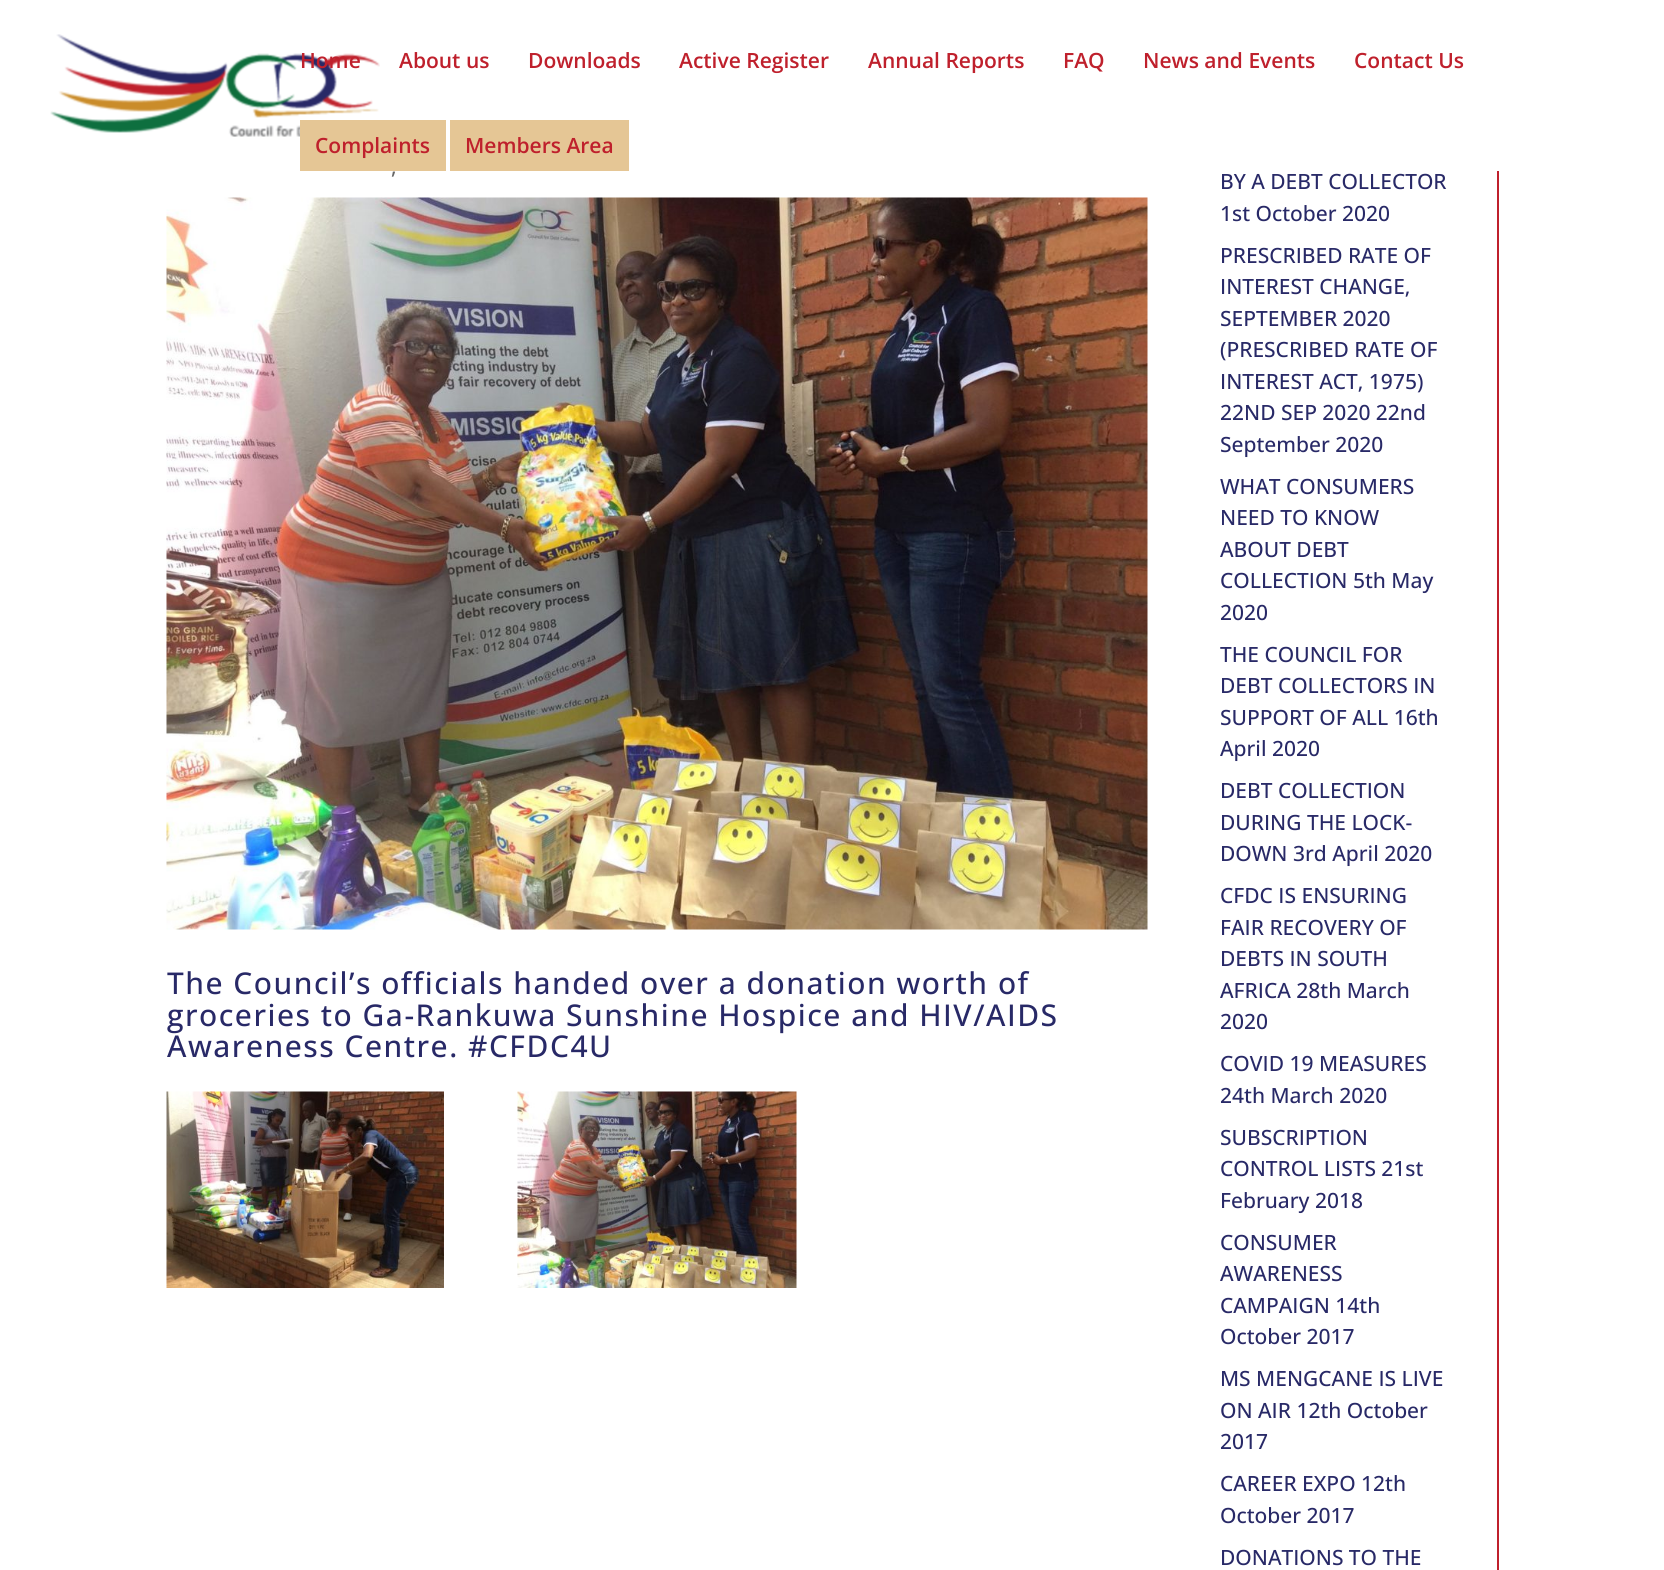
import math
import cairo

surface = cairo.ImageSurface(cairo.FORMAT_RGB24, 1664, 1570)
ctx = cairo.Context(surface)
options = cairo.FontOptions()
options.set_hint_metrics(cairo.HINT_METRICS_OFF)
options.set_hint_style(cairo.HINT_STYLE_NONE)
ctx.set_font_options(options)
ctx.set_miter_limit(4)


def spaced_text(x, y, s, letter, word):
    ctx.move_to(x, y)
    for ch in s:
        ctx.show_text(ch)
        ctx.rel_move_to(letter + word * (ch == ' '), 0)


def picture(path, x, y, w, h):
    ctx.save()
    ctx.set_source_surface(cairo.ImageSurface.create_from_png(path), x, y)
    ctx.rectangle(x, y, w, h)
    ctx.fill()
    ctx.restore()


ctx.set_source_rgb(1, 1, 1)
ctx.paint()
picture("img1.png", 50, 34, 330, 103)
ctx.select_font_face("Open Sans SemiBold")
ctx.set_font_size(21)
ctx.set_source_rgb(0.749, 0.125, 0.173)
ctx.move_to(300, 68)
ctx.show_text("Home")
ctx.move_to(399, 68)
ctx.show_text("About us")
ctx.move_to(528, 68)
ctx.show_text("Downloads")
ctx.move_to(679, 68)
ctx.show_text("Active Register")
ctx.move_to(868, 68)
ctx.show_text("Annual Reports")
ctx.move_to(1063, 68)
ctx.show_text("FAQ")
ctx.move_to(1143, 68)
ctx.show_text("News and Events")
ctx.move_to(1354, 68)
ctx.show_text("Contact Us")
ctx.set_source_rgb(0.898, 0.776, 0.584)
ctx.rectangle(300, 120, 146, 51)
ctx.fill()
ctx.set_source_rgb(0.749, 0.125, 0.173)
ctx.move_to(315, 153)
ctx.show_text("Complaints")
ctx.set_source_rgb(0.898, 0.776, 0.584)
ctx.rectangle(450, 120, 179, 51)
ctx.fill()
ctx.set_source_rgb(0.749, 0.125, 0.173)
ctx.move_to(465, 153)
ctx.show_text("Members Area")
ctx.select_font_face("Open Sans Medium")
ctx.set_source_rgb(0.4, 0.4, 0.4)
ctx.move_to(391, 174)
ctx.show_text(",")
picture("img2.png", 166, 197, 982, 733)
ctx.set_font_size(30)
ctx.set_source_rgb(0.157, 0.161, 0.404)
spaced_text(167, 994, "The Council’s officials handed over a donation worth of", 1.5, 0)
spaced_text(167, 1026, "groceries to Ga-Rankuwa Sunshine Hospice and HIV/AIDS", 1.5, 0)
spaced_text(167, 1057, "Awareness Centre. #CFDC4U", 1.5, 0)
picture("img3.png", 166, 1091, 278, 197)
picture("img4.png", 517, 1091, 280, 197)
ctx.set_source_rgb(0.749, 0.125, 0.173)
ctx.rectangle(1497, 171, 2, 1399)
ctx.fill()
ctx.set_font_size(21)
ctx.set_source_rgb(0.157, 0.161, 0.404)
ctx.move_to(1220, 189)
ctx.show_text("BY A DEBT COLLECTOR")
ctx.move_to(1220, 221)
ctx.show_text("1st October 2020")
ctx.move_to(1220, 263)
ctx.show_text("PRESCRIBED RATE OF")
ctx.move_to(1220, 294)
ctx.show_text("INTEREST CHANGE,")
ctx.move_to(1220, 326)
ctx.show_text("SEPTEMBER 2020")
ctx.move_to(1220, 357)
ctx.show_text("(PRESCRIBED RATE OF")
ctx.move_to(1220, 389)
ctx.show_text("INTEREST ACT, 1975)")
ctx.move_to(1220, 420)
ctx.show_text("22ND SEP 2020 22nd")
ctx.move_to(1220, 452)
ctx.show_text("September 2020")
ctx.move_to(1220, 494)
ctx.show_text("WHAT CONSUMERS")
ctx.move_to(1220, 525)
ctx.show_text("NEED TO KNOW")
ctx.move_to(1220, 557)
ctx.show_text("ABOUT DEBT")
ctx.move_to(1220, 588)
ctx.show_text("COLLECTION 5th May")
ctx.move_to(1220, 620)
ctx.show_text("2020")
ctx.move_to(1220, 662)
ctx.show_text("THE COUNCIL FOR")
ctx.move_to(1220, 693)
ctx.show_text("DEBT COLLECTORS IN")
ctx.move_to(1220, 725)
ctx.show_text("SUPPORT OF ALL 16th")
ctx.move_to(1220, 756)
ctx.show_text("April 2020")
ctx.move_to(1220, 798)
ctx.show_text("DEBT COLLECTION")
ctx.move_to(1220, 830)
ctx.show_text("DURING THE LOCK-")
ctx.move_to(1220, 861)
ctx.show_text("DOWN 3rd April 2020")
ctx.move_to(1220, 903)
ctx.show_text("CFDC IS ENSURING")
ctx.move_to(1220, 935)
ctx.show_text("FAIR RECOVERY OF")
ctx.move_to(1220, 966)
ctx.show_text("DEBTS IN SOUTH")
ctx.move_to(1220, 998)
ctx.show_text("AFRICA 28th March")
ctx.move_to(1220, 1029)
ctx.show_text("2020")
ctx.move_to(1220, 1071)
ctx.show_text("COVID 19 MEASURES")
ctx.move_to(1220, 1103)
ctx.show_text("24th March 2020")
ctx.move_to(1220, 1145)
ctx.show_text("SUBSCRIPTION")
ctx.move_to(1220, 1176)
ctx.show_text("CONTROL LISTS 21st")
ctx.move_to(1220, 1208)
ctx.show_text("February 2018")
ctx.move_to(1220, 1250)
ctx.show_text("CONSUMER")
ctx.move_to(1220, 1281)
ctx.show_text("AWARENESS")
ctx.move_to(1220, 1313)
ctx.show_text("CAMPAIGN 14th")
ctx.move_to(1220, 1344)
ctx.show_text("October 2017")
ctx.move_to(1220, 1386)
ctx.show_text("MS MENGCANE IS LIVE")
ctx.move_to(1220, 1418)
ctx.show_text("ON AIR 12th October")
ctx.move_to(1220, 1449)
ctx.show_text("2017")
ctx.move_to(1220, 1491)
ctx.show_text("CAREER EXPO 12th")
ctx.move_to(1220, 1523)
ctx.show_text("October 2017")
ctx.move_to(1220, 1565)
ctx.show_text("DONATIONS TO THE")
surface.write_to_png("page.png")
